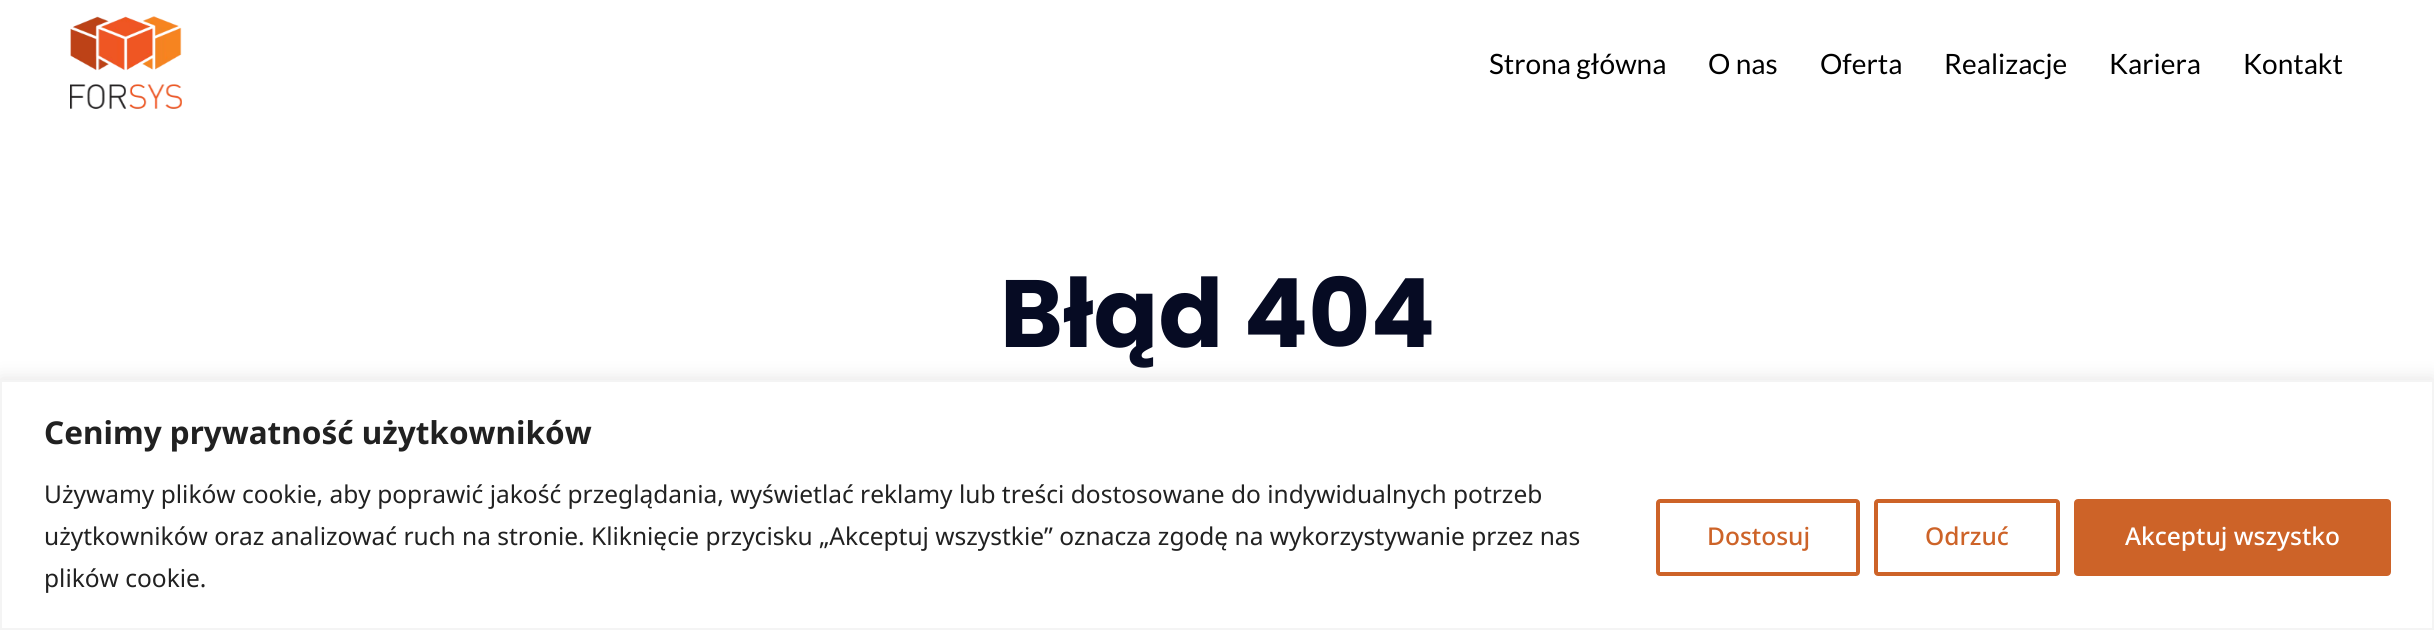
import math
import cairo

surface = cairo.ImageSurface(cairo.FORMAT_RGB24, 2434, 630)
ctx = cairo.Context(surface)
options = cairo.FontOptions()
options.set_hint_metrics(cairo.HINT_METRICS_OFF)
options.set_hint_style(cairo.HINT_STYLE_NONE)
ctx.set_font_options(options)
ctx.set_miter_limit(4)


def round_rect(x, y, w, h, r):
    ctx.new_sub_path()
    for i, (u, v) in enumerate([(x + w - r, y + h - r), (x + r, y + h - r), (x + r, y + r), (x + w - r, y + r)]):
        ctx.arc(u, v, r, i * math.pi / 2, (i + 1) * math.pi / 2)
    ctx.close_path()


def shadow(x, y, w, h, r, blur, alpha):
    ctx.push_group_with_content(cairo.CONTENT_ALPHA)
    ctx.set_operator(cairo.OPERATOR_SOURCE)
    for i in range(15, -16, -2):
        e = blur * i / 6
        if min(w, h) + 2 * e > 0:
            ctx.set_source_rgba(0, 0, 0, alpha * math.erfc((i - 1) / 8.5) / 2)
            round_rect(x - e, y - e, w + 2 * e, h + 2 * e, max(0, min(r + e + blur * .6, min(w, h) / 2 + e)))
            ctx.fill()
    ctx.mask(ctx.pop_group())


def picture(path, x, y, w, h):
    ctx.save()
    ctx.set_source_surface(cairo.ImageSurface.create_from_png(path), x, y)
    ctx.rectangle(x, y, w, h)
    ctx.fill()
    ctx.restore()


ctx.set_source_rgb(1, 1, 1)
ctx.paint()
picture("img1.png", 70, 16, 112, 93)
ctx.select_font_face("Lato")
ctx.set_font_size(28)
ctx.set_source_rgb(0, 0, 0)
ctx.move_to(1489, 74)
ctx.show_text("Strona główna")
ctx.move_to(1708, 74)
ctx.show_text("O nas")
ctx.move_to(1820, 74)
ctx.show_text("Oferta")
ctx.move_to(1944, 74)
ctx.show_text("Realizacje")
ctx.move_to(2109, 74)
ctx.show_text("Kariera")
ctx.move_to(2243, 74)
ctx.show_text("Kontakt")
ctx.select_font_face("Poppins", cairo.FONT_SLANT_NORMAL, cairo.FONT_WEIGHT_BOLD)
ctx.set_font_size(95.5)
ctx.set_source_rgb(0.024, 0.043, 0.137)
ctx.move_to(1000, 347)
ctx.show_text("Błąd 404")
ctx.set_source_rgb(0.675, 0.671, 0.671)
shadow(0, 378, 2434, 250, 0, 9, 0.3)
ctx.set_source_rgb(1, 1, 1)
ctx.rectangle(1, 381, 2432, 248)
ctx.fill_preserve()
ctx.set_source_rgb(0.957, 0.957, 0.957)
ctx.stroke()
ctx.select_font_face("Noto Sans", cairo.FONT_SLANT_NORMAL, cairo.FONT_WEIGHT_BOLD)
ctx.set_font_size(31.5)
ctx.set_source_rgb(0.129, 0.129, 0.129)
ctx.move_to(44, 444)
ctx.show_text("Cenimy prywatność użytkowników")
ctx.select_font_face("Noto Sans")
ctx.set_font_size(24.5)
ctx.move_to(44, 503)
ctx.show_text("Używamy plików cookie, aby poprawić jakość przeglądania, wyświetlać reklamy lub treści dostosowane do indywidualnych potrzeb")
ctx.move_to(44, 545)
ctx.show_text("użytkowników oraz analizować ruch na stronie. Kliknięcie przycisku „Akceptuj wszystkie” oznacza zgodę na wykorzystywanie przez nas")
ctx.move_to(44, 587)
ctx.show_text("plików cookie.")
round_rect(1658, 501, 200, 73, 2)
ctx.set_source_rgb(0.804, 0.388, 0.157)
ctx.set_line_width(4)
ctx.stroke()
ctx.select_font_face("Noto Sans Medium")
ctx.move_to(1707, 545)
ctx.show_text("Dostosuj")
round_rect(1876, 501, 182, 73, 2)
ctx.stroke()
ctx.move_to(1925, 545)
ctx.show_text("Odrzuć")
round_rect(2076, 501, 313, 73, 2)
ctx.fill_preserve()
ctx.stroke()
ctx.set_source_rgb(1, 1, 1)
ctx.move_to(2125, 545)
ctx.show_text("Akceptuj wszystko")
surface.write_to_png("page.png")
